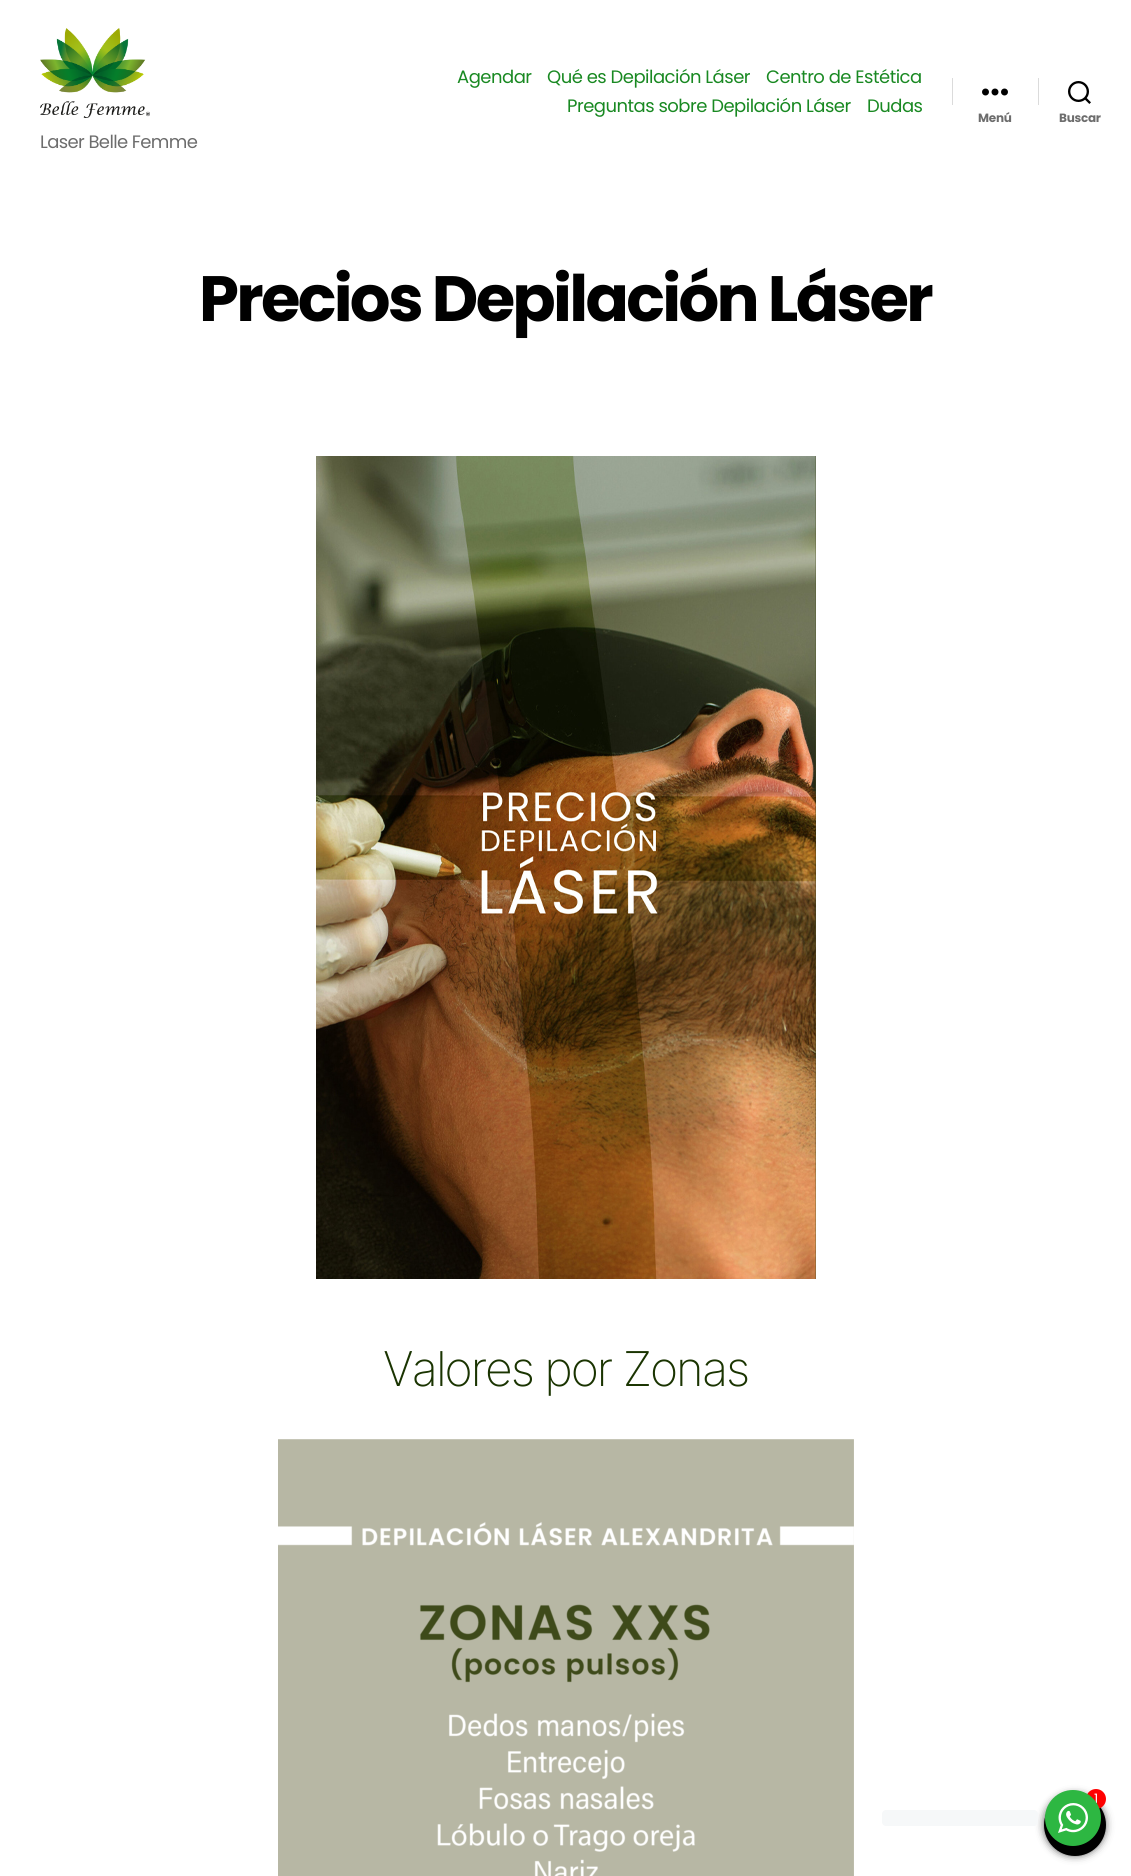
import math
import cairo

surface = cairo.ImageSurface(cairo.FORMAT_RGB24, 1131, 1876)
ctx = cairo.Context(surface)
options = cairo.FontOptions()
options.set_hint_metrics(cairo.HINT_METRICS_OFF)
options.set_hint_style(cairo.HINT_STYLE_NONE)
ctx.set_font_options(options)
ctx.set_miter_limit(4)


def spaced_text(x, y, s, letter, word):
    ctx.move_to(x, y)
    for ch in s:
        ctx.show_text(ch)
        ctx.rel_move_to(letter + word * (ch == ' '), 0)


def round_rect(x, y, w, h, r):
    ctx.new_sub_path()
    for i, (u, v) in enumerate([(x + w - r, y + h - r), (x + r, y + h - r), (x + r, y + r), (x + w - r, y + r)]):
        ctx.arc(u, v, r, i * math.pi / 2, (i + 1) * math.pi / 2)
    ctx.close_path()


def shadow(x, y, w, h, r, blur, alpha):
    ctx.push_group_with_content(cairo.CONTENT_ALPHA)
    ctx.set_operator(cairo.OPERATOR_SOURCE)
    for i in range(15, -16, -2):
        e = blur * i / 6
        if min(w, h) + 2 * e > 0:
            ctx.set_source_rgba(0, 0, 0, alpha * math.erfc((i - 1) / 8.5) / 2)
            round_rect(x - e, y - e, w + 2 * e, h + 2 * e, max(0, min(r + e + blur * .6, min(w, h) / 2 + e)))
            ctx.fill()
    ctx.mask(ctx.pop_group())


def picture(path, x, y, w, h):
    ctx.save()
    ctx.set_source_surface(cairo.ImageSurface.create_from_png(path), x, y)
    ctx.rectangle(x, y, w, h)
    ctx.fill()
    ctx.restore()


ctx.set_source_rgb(1, 1, 1)
ctx.paint()
ctx.select_font_face("Poppins")
ctx.set_font_size(18)
ctx.set_source_rgb(0.098, 0.537, 0.133)
spaced_text(457, 83, "Agendar", -0.5, 0)
spaced_text(547, 83, "Qué es Depilación Láser", -0.5, 0)
spaced_text(766, 83, "Centro de Estética", -0.5, 0)
spaced_text(567, 112, "Preguntas sobre Depilación Láser", -0.5, 0)
spaced_text(867, 112, "Dudas", -0.5, 0)
ctx.set_source_rgb(0.859, 0.859, 0.859)
ctx.rectangle(952, 78, 1, 27)
ctx.fill()
picture("img1.png", 982, 88, 26, 8)
ctx.select_font_face("Poppins", cairo.FONT_SLANT_NORMAL, cairo.FONT_WEIGHT_BOLD)
ctx.set_font_size(12)
ctx.set_source_rgb(0.427, 0.427, 0.427)
spaced_text(978, 122, "Menú", -0.25, 0)
ctx.set_source_rgb(0.859, 0.859, 0.859)
ctx.rectangle(1038, 78, 1, 27)
ctx.fill()
picture("img2.png", 1068, 81, 23, 23)
ctx.set_source_rgb(0.427, 0.427, 0.427)
spaced_text(1059, 122, "Buscar", -0.25, 0)
picture("img3.png", 40, 28, 110, 90)
ctx.select_font_face("Poppins")
ctx.set_font_size(18)
spaced_text(40, 148, "Laser Belle Femme", -0.6, 0)
ctx.select_font_face("Poppins", cairo.FONT_SLANT_NORMAL, cairo.FONT_WEIGHT_BOLD)
ctx.set_font_size(64)
ctx.set_source_rgb(0, 0, 0)
spaced_text(199, 321, "Precios Depilación Láser", -2.7, 0)
picture("img4.png", 316, 456, 500, 823)
ctx.select_font_face("Inter ExtraLight")
ctx.set_font_size(48)
ctx.set_source_rgb(0.102, 0.204, 0.004)
spaced_text(383, 1386, "Valores por Zonas", -2, 0)
picture("img5.png", 278, 1439, 576, 437)
ctx.set_source_rgb(0, 0, 0)
shadow(1047, 1797, 56, 56, 28, 5, 1)
ctx.set_source_rgb(0, 0, 0)
ctx.arc(1075, 1825, 31, 0, 2 * math.pi)
ctx.fill()
ctx.set_source_rgb(1, 0, 0)
ctx.arc(1096, 1799, 10, 0, 2 * math.pi)
ctx.fill()
ctx.set_source_rgb(0, 0, 0)
shadow(1043, 1794, 60, 60, 30, 4, 0.14)
ctx.set_source_rgb(0.961, 0.969, 0.976)
round_rect(882, 1810, 156, 16, 4)
ctx.fill()
ctx.select_font_face("Poppins")
ctx.set_font_size(13)
ctx.set_source_rgb(1, 1, 1)
spaced_text(1094, 1803, "1", -0.25, 0)
ctx.set_source_rgb(0.176, 0.718, 0.259)
ctx.new_path()
ctx.arc(1073, 1818, 28, 0, 2 * math.pi)
ctx.fill()
picture("img6.png", 1058, 1803, 30, 30)
surface.write_to_png("page.png")
